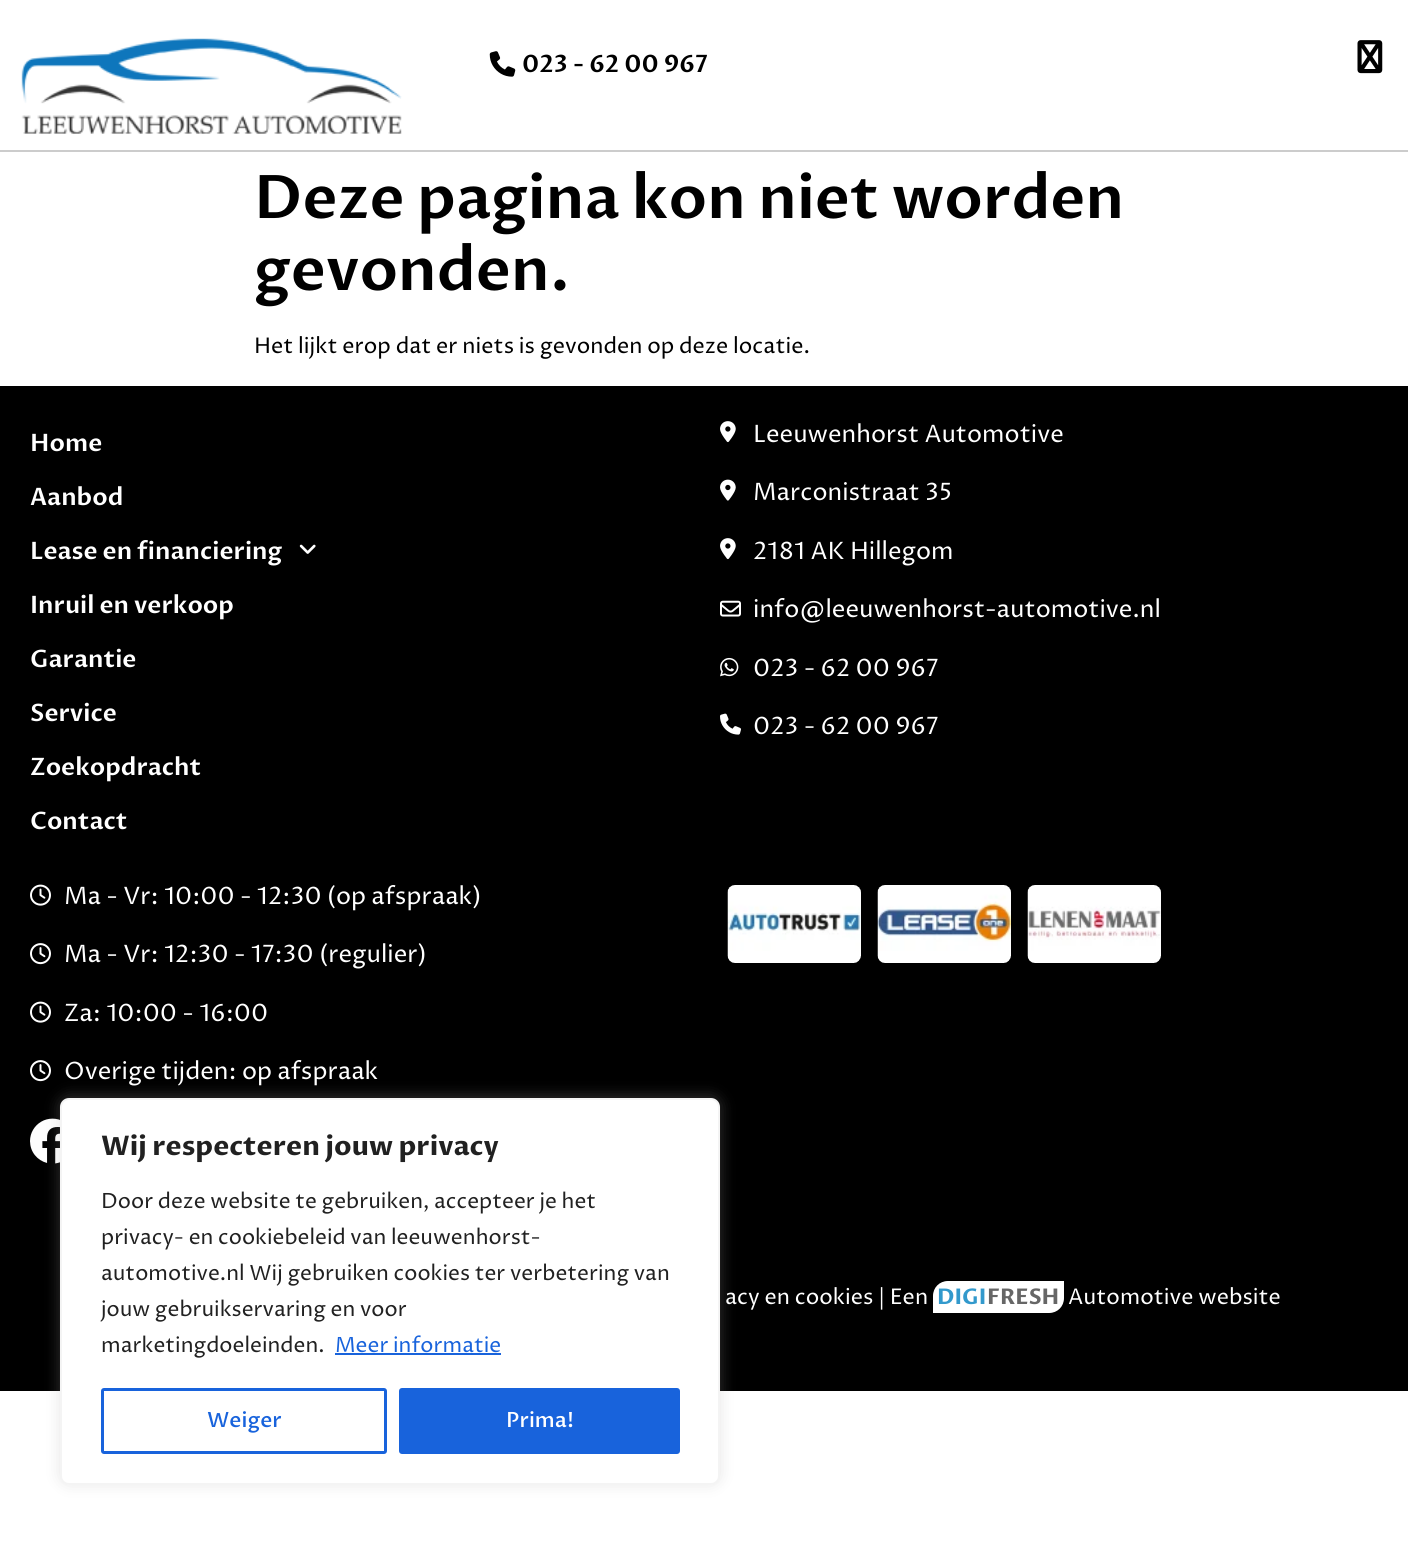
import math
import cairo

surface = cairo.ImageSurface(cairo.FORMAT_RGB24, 1408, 1544)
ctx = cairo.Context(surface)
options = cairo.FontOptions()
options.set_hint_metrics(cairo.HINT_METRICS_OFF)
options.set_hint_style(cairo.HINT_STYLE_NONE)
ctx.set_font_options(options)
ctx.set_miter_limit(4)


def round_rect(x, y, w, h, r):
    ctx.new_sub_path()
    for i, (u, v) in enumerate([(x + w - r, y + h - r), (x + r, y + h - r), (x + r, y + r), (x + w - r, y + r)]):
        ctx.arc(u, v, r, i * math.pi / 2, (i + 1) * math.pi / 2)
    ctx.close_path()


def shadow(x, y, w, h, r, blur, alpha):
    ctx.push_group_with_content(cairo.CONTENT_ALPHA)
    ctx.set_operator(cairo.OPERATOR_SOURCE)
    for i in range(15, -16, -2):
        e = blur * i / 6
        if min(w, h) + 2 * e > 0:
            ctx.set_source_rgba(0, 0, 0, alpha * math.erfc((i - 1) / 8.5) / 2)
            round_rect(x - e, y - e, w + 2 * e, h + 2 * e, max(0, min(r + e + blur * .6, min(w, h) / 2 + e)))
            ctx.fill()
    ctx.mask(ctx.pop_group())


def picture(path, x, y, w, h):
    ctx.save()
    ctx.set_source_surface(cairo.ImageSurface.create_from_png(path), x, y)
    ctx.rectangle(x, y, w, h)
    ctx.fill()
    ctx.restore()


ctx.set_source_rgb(1, 1, 1)
ctx.paint()
ctx.set_source_rgb(0.8, 0.8, 0.8)
ctx.rectangle(0, 150, 1408, 2)
ctx.fill()
picture("img1.png", 21, 38, 381, 96)
picture("img2.png", 489, 51, 27, 26)
ctx.select_font_face("Proza Libre SemiBold")
ctx.set_font_size(24)
ctx.set_source_rgb(0, 0, 0)
ctx.move_to(522, 72)
ctx.show_text("023 - 62 00 967")
picture("img3.png", 1357, 40, 26, 34)
ctx.set_font_size(60)
ctx.move_to(254, 218)
ctx.show_text("Deze pagina kon niet worden")
ctx.move_to(254, 290)
ctx.show_text("gevonden.")
ctx.select_font_face("Proza Libre")
ctx.set_font_size(21.6)
ctx.move_to(254, 353)
ctx.show_text("Het lijkt erop dat er niets is gevonden op deze locatie.")
ctx.rectangle(0, 386, 1408, 1005)
ctx.fill()
ctx.select_font_face("Proza Libre SemiBold")
ctx.set_font_size(24)
ctx.set_source_rgb(1, 1, 1)
ctx.move_to(30, 451)
ctx.show_text("Home")
ctx.move_to(30, 505)
ctx.show_text("Aanbod")
ctx.move_to(30, 559)
ctx.show_text("Lease en financiering")
picture("img4.png", 299, 544, 17, 10)
ctx.move_to(30, 613)
ctx.show_text("Inruil en verkoop")
ctx.move_to(30, 667)
ctx.show_text("Garantie")
ctx.move_to(30, 721)
ctx.show_text("Service")
ctx.move_to(30, 775)
ctx.show_text("Zoekopdracht")
ctx.move_to(30, 829)
ctx.show_text("Contact")
picture("img5.png", 720, 421, 16, 22)
ctx.select_font_face("Proza Libre")
ctx.move_to(753, 442)
ctx.show_text("Leeuwenhorst Automotive")
picture("img6.png", 720, 479, 16, 22)
ctx.move_to(753, 500)
ctx.show_text("Marconistraat 35")
picture("img5.png", 720, 538, 16, 22)
ctx.move_to(753, 559)
ctx.show_text("2181 AK Hillegom")
picture("img7.png", 720, 600, 21, 17)
ctx.move_to(753, 617)
ctx.show_text("info@leeuwenhorst-automotive.nl")
picture("img8.png", 720, 657, 19, 20)
ctx.move_to(753, 676)
ctx.show_text("023 - 62 00 967")
picture("img9.png", 720, 713, 21, 22)
ctx.move_to(753, 734)
ctx.show_text("023 - 62 00 967")
picture("img10.png", 30, 884, 21, 22)
ctx.move_to(64, 904)
ctx.show_text("Ma - Vr: 10:00 - 12:30 (op afspraak)")
picture("img11.png", 30, 943, 21, 22)
ctx.move_to(64, 962)
ctx.show_text("Ma - Vr: 12:30 - 17:30 (regulier)")
picture("img10.png", 30, 1001, 21, 22)
ctx.move_to(64, 1021)
ctx.show_text("Za: 10:00 - 16:00")
picture("img11.png", 30, 1060, 21, 22)
ctx.move_to(64, 1079)
ctx.show_text("Overige tijden: op afspraak")
picture("img12.png", 30, 1118, 30, 46)
picture("img13.png", 727, 885, 134, 78)
picture("img14.png", 877, 885, 134, 78)
picture("img15.png", 1027, 885, 134, 78)
ctx.set_font_size(21.6)
ctx.move_to(725, 1304)
ctx.show_text("acy en cookies | Een")
ctx.new_path()
ctx.move_to(948, 1281)
ctx.line_to(987, 1281)
ctx.line_to(987, 1313)
ctx.line_to(933, 1313)
ctx.line_to(933, 1296)
ctx.curve_to(933, 1287.5, 939.5, 1281, 948, 1281)
ctx.close_path()
ctx.fill()
ctx.select_font_face("Proza Libre", cairo.FONT_SLANT_NORMAL, cairo.FONT_WEIGHT_BOLD)
ctx.set_source_rgb(0.196, 0.6, 0.8)
ctx.move_to(937, 1304)
ctx.show_text("DIGI")
ctx.set_source_rgb(1, 1, 1)
ctx.new_path()
ctx.move_to(987, 1281)
ctx.line_to(1064, 1281)
ctx.line_to(1064, 1298)
ctx.curve_to(1064, 1306.5, 1057.5, 1313, 1049, 1313)
ctx.line_to(987, 1313)
ctx.close_path()
ctx.fill()
ctx.set_source_rgb(0.4, 0.4, 0.4)
ctx.move_to(987, 1304)
ctx.show_text("FRESH")
ctx.select_font_face("Proza Libre")
ctx.set_source_rgb(1, 1, 1)
ctx.move_to(1068, 1304)
ctx.show_text("Automotive website")
ctx.set_source_rgb(0.675, 0.671, 0.671)
shadow(60, 1097, 660, 387, 9, 7.5, 0.3)
ctx.set_source_rgb(1, 1, 1)
round_rect(61, 1099, 658, 385, 8)
ctx.fill_preserve()
ctx.set_source_rgb(0.957, 0.957, 0.957)
ctx.stroke()
ctx.select_font_face("Proza Libre", cairo.FONT_SLANT_NORMAL, cairo.FONT_WEIGHT_BOLD)
ctx.set_font_size(27)
ctx.set_source_rgb(0.129, 0.129, 0.129)
ctx.move_to(101, 1155)
ctx.show_text("Wij respecteren jouw privacy")
ctx.select_font_face("Proza Libre")
ctx.set_font_size(21)
ctx.move_to(101, 1208)
ctx.show_text("Door deze website te gebruiken, accepteer je het")
ctx.move_to(101, 1244)
ctx.show_text("privacy- en cookiebeleid van leeuwenhorst-")
ctx.move_to(101, 1280)
ctx.show_text("automotive.nl Wij gebruiken cookies ter verbetering van")
ctx.move_to(101, 1316)
ctx.show_text("jouw gebruikservaring en voor")
ctx.move_to(101, 1352)
ctx.show_text("marketingdoeleinden.")
ctx.set_source_rgb(0.094, 0.388, 0.863)
ctx.move_to(335, 1352)
ctx.show_text("Meer informatie")
ctx.rectangle(335, 1353, 166, 2)
ctx.fill()
round_rect(102.5, 1389.5, 283, 63, 1.5)
ctx.set_line_width(3)
ctx.stroke()
ctx.select_font_face("Proza Libre Medium")
ctx.move_to(207, 1427)
ctx.show_text("Weiger")
round_rect(400.5, 1389.5, 278, 63, 1.5)
ctx.fill_preserve()
ctx.stroke()
ctx.set_source_rgb(1, 1, 1)
ctx.move_to(506, 1427)
ctx.show_text("Prima!")
surface.write_to_png("page.png")
